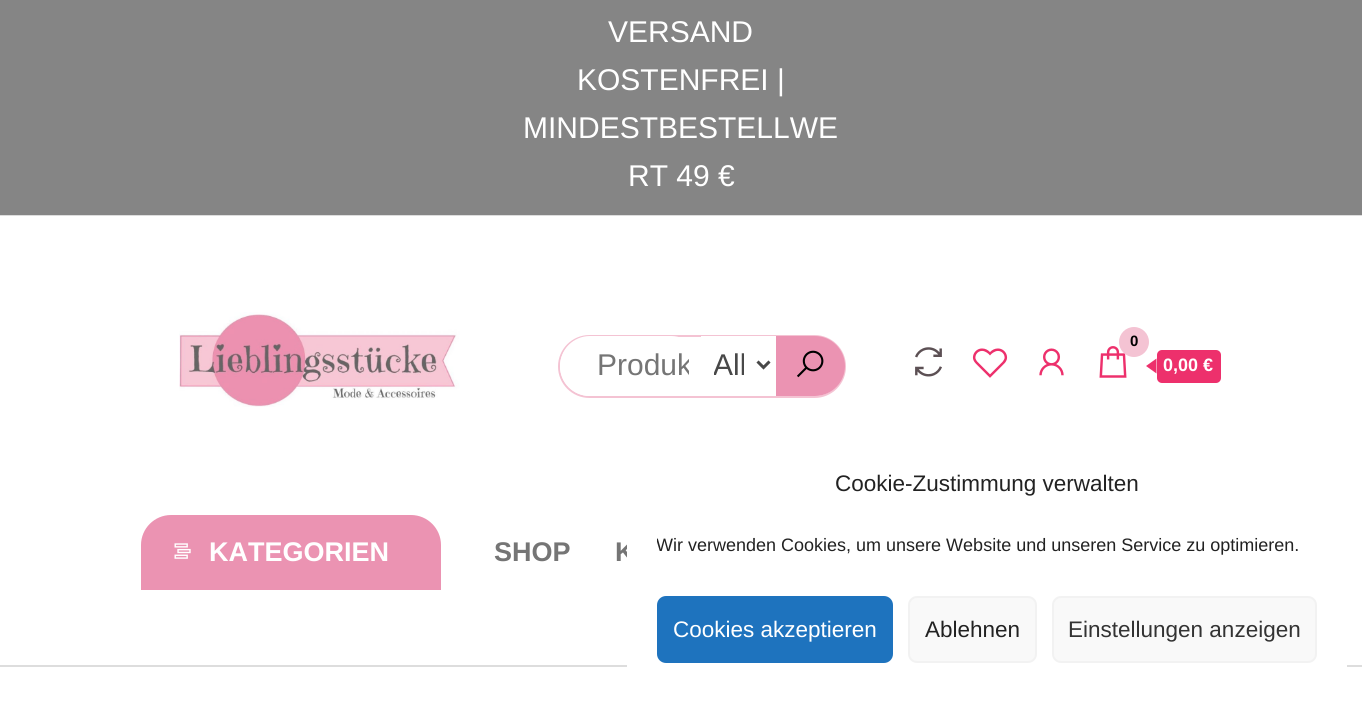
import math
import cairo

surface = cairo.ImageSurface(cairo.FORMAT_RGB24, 1362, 715)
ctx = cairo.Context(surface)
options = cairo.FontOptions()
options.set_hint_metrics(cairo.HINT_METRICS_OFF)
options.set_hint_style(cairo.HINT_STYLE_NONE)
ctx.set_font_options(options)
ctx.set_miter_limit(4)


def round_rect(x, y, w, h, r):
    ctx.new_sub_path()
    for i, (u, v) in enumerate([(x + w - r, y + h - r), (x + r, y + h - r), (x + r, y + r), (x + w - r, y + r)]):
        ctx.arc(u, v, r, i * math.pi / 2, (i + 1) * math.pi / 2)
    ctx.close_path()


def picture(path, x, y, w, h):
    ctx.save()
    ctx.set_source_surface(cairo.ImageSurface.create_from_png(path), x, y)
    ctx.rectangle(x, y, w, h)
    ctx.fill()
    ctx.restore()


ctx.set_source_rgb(1, 1, 1)
ctx.paint()
ctx.set_source_rgb(0.522, 0.522, 0.522)
ctx.rectangle(0, 0, 1362, 215)
ctx.fill()
ctx.set_source_rgb(0.867, 0.867, 0.867)
ctx.rectangle(0, 215, 1362, 1)
ctx.fill()
ctx.select_font_face("Liberation Sans")
ctx.set_font_size(30)
ctx.set_source_rgb(1, 1, 1)
ctx.move_to(608, 42)
ctx.show_text("VERSAND")
ctx.move_to(577, 90)
ctx.show_text("KOSTENFREI |")
ctx.move_to(523, 138)
ctx.show_text("MINDESTBESTELLWE")
ctx.move_to(628, 186)
ctx.show_text("RT 49 €")
picture("img1.png", 179, 312, 281, 95)
round_rect(559, 336, 286, 61, 30.5)
ctx.set_source_rgb(0.957, 0.765, 0.827)
ctx.stroke()
ctx.set_source_rgb(1, 1, 1)
round_rect(560, 336, 141, 60, 30)
ctx.fill()
ctx.save()
ctx.rectangle(597, 348, 92, 35)
ctx.clip()
ctx.set_source_rgb(0.459, 0.459, 0.459)
ctx.move_to(597, 375)
ctx.show_text("Produk")
ctx.restore()
ctx.rectangle(701, 336, 75, 1)
ctx.fill()
ctx.new_path()
ctx.move_to(757.5, 361.5)
ctx.line_to(763.5, 367.5)
ctx.line_to(769.5, 361.5)
ctx.set_source_rgb(0.282, 0.282, 0.282)
ctx.set_line_width(3)
ctx.stroke()
ctx.save()
ctx.rectangle(714, 347, 30, 36)
ctx.clip()
ctx.move_to(713, 375)
ctx.show_text("All")
ctx.restore()
ctx.set_source_rgb(0.918, 0.576, 0.698)
ctx.new_path()
ctx.move_to(776, 336)
ctx.line_to(815, 336)
ctx.curve_to(831.5, 336, 845, 349.5, 845, 366)
ctx.curve_to(845, 382.5, 831.5, 396, 815, 396)
ctx.line_to(776, 396)
ctx.close_path()
ctx.fill()
picture("img2.png", 797, 350, 27, 28)
picture("img3.png", 915, 347, 27, 30)
picture("img4.png", 972, 348, 36, 30)
picture("img5.png", 1039, 348, 25, 28)
picture("img6.png", 1099, 346, 28, 32)
ctx.set_source_rgb(0.957, 0.765, 0.827)
ctx.arc(1134, 342, 15, 0, 2 * math.pi)
ctx.fill()
ctx.select_font_face("Liberation Sans", cairo.FONT_SLANT_NORMAL, cairo.FONT_WEIGHT_BOLD)
ctx.set_font_size(15)
ctx.set_source_rgb(0, 0, 0)
ctx.move_to(1130, 346)
ctx.show_text("0")
ctx.set_source_rgb(0.929, 0.188, 0.424)
round_rect(1157, 350, 64, 33, 5)
ctx.fill()
ctx.new_path()
ctx.move_to(1156.5, 358.5)
ctx.line_to(1156.5, 373.5)
ctx.line_to(1146, 366)
ctx.close_path()
ctx.fill()
ctx.set_font_size(18)
ctx.set_source_rgb(1, 1, 1)
ctx.move_to(1163, 371)
ctx.show_text("0,00 €")
ctx.set_source_rgb(0.867, 0.867, 0.867)
ctx.rectangle(0, 665, 1362, 2)
ctx.fill()
ctx.set_source_rgb(0.918, 0.576, 0.698)
ctx.new_path()
ctx.move_to(171, 515)
ctx.line_to(411, 515)
ctx.curve_to(427.5, 515, 441, 528.5, 441, 545)
ctx.line_to(441, 590)
ctx.line_to(141, 590)
ctx.line_to(141, 545)
ctx.curve_to(141, 528.5, 154.5, 515, 171, 515)
ctx.close_path()
ctx.fill()
picture("img7.png", 174, 543, 17, 16)
ctx.set_font_size(27)
ctx.set_source_rgb(1, 1, 1)
ctx.move_to(209, 561)
ctx.show_text("KATEGORIEN")
ctx.set_source_rgb(0.459, 0.459, 0.459)
ctx.move_to(494, 561)
ctx.show_text("SHOP")
ctx.move_to(615, 561)
ctx.show_text("K")
ctx.set_source_rgb(1, 1, 1)
round_rect(627, 443, 720, 258, 18)
ctx.fill()
ctx.select_font_face("Liberation Sans")
ctx.set_font_size(22.5)
ctx.set_source_rgb(0.133, 0.133, 0.133)
ctx.move_to(835, 491)
ctx.show_text("Cookie-Zustimmung verwalten")
ctx.save()
ctx.rectangle(657, 531, 660, 35)
ctx.clip()
ctx.set_font_size(18)
ctx.move_to(656, 551)
ctx.show_text("Wir verwenden Cookies, um unsere Website und unseren Service zu optimieren.")
ctx.restore()
ctx.set_source_rgb(0.118, 0.451, 0.745)
round_rect(658, 597, 234, 65, 8)
ctx.fill_preserve()
ctx.set_line_width(2)
ctx.stroke()
ctx.set_source_rgb(1, 1, 1)
ctx.move_to(673, 637)
ctx.show_text("Cookies akzeptieren")
ctx.set_source_rgb(0.976, 0.976, 0.976)
round_rect(909, 597, 127, 65, 8)
ctx.fill_preserve()
ctx.set_source_rgb(0.949, 0.949, 0.949)
ctx.stroke()
ctx.set_source_rgb(0.133, 0.133, 0.133)
ctx.move_to(925, 637)
ctx.show_text("Ablehnen")
ctx.set_source_rgb(0.976, 0.976, 0.976)
round_rect(1053, 597, 263, 65, 8)
ctx.fill_preserve()
ctx.set_source_rgb(0.949, 0.949, 0.949)
ctx.stroke()
ctx.set_source_rgb(0.2, 0.2, 0.2)
ctx.move_to(1068, 637)
ctx.show_text("Einstellungen anzeigen")
surface.write_to_png("page.png")
